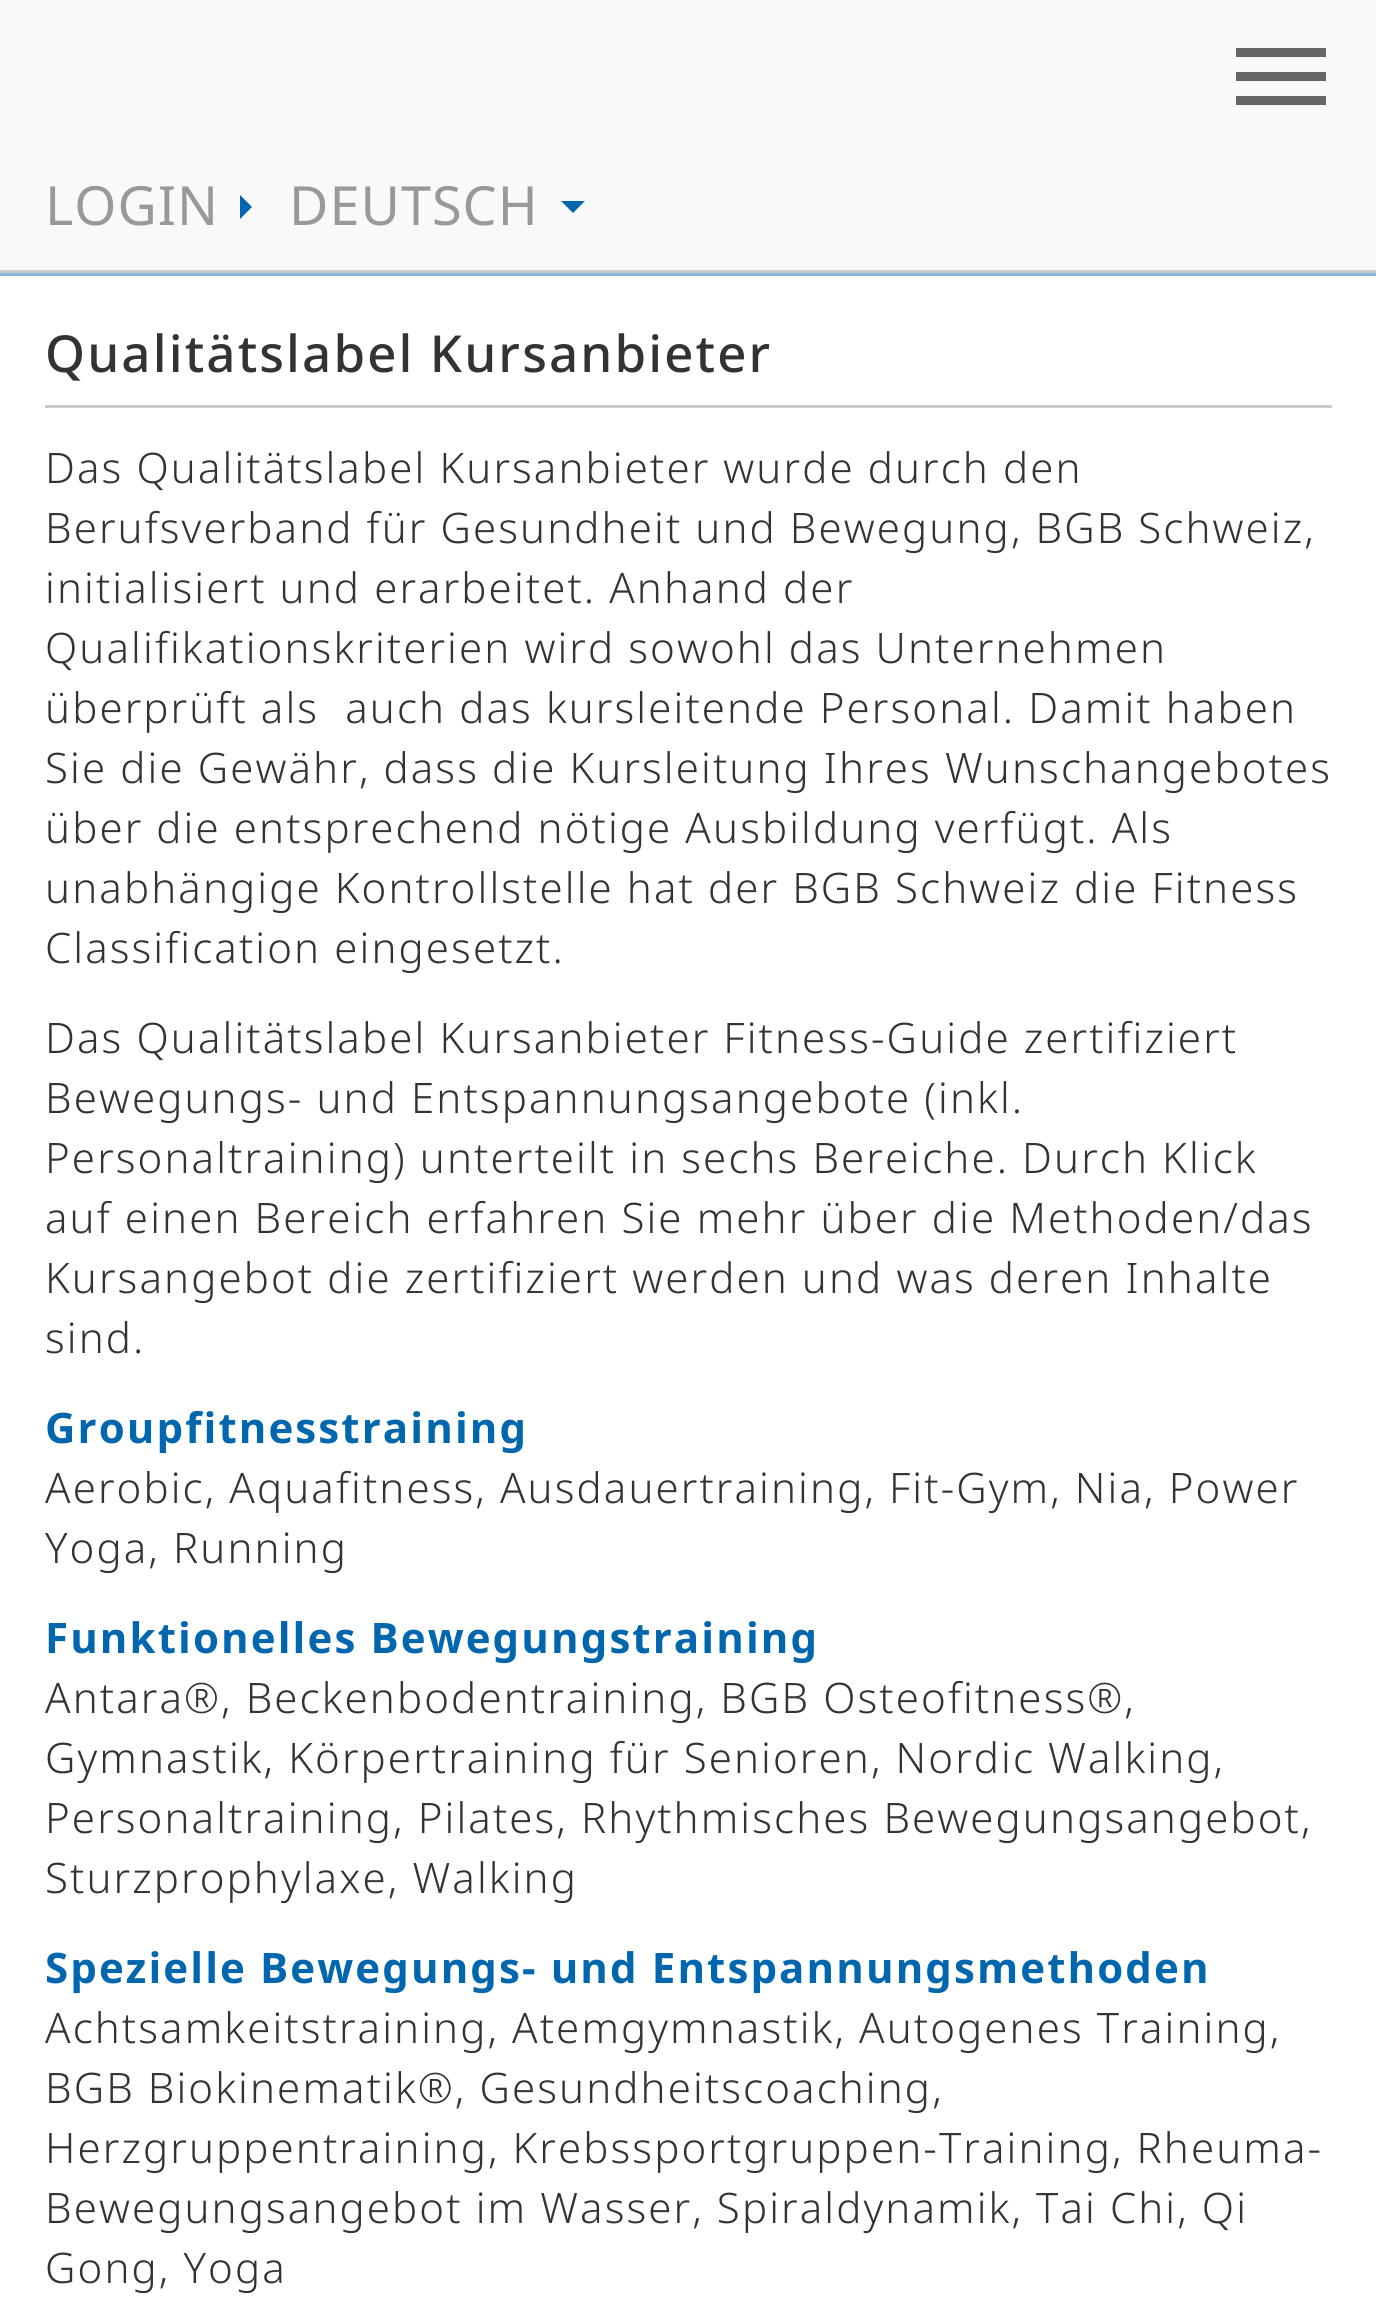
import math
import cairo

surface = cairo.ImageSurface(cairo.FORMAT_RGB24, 1376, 2306)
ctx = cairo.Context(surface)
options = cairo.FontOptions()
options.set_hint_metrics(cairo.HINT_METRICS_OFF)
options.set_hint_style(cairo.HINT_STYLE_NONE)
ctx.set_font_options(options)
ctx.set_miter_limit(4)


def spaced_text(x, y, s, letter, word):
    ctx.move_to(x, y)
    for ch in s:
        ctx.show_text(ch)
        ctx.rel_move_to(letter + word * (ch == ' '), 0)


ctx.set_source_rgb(0.533, 0.722, 0.851)
ctx.paint()
ctx.set_source_rgb(0.973, 0.973, 0.973)
ctx.rectangle(0, 0, 1376, 270)
ctx.fill()
ctx.set_source_rgb(0.8, 0.8, 0.8)
ctx.rectangle(0, 270, 1376, 3)
ctx.fill()
ctx.set_source_rgb(0.4, 0.4, 0.4)
ctx.rectangle(1236, 48, 90, 9)
ctx.fill()
ctx.rectangle(1236, 72, 90, 9)
ctx.fill()
ctx.rectangle(1236, 96, 90, 9)
ctx.fill()
ctx.select_font_face("Noto Sans")
ctx.set_font_size(54)
ctx.set_source_rgb(0.6, 0.6, 0.6)
spaced_text(45, 225, "LOGIN", 1, 0)
ctx.set_source_rgb(0, 0.4, 0.682)
ctx.new_path()
ctx.move_to(240, 219)
ctx.line_to(240, 195)
ctx.line_to(252, 207)
ctx.close_path()
ctx.fill()
ctx.set_source_rgb(0.6, 0.6, 0.6)
spaced_text(289, 225, "DEUTSCH", 1, 0)
ctx.set_source_rgb(0, 0.4, 0.682)
ctx.new_path()
ctx.move_to(561, 201)
ctx.line_to(585, 201)
ctx.line_to(573, 213)
ctx.close_path()
ctx.fill()
ctx.set_source_rgb(1, 1, 1)
ctx.rectangle(0, 276, 1376, 2030)
ctx.fill()
ctx.set_source_rgb(0.8, 0.8, 0.8)
ctx.rectangle(45, 405, 1287, 3)
ctx.fill()
ctx.select_font_face("Noto Sans Medium")
ctx.set_font_size(51)
ctx.set_source_rgb(0.2, 0.2, 0.2)
spaced_text(45, 372, "Qualitätslabel Kursanbieter", 2.1, 0)
ctx.select_font_face("Noto Sans Light")
ctx.set_font_size(42)
spaced_text(45, 483, "Das Qualitätslabel Kursanbieter wurde durch den", 2.1, 0)
spaced_text(45, 543, "Berufsverband für Gesundheit und Bewegung, BGB Schweiz,", 2.1, 0)
spaced_text(45, 603, "initialisiert und erarbeitet. Anhand der", 2.1, 0)
spaced_text(45, 663, "Qualifikationskriterien wird sowohl das Unternehmen", 2.1, 0)
spaced_text(45, 723, "überprüft als  auch das kursleitende Personal. Damit haben", 2.1, 0)
spaced_text(45, 783, "Sie die Gewähr, dass die Kursleitung Ihres Wunschangebotes", 2.1, 0)
spaced_text(45, 843, "über die entsprechend nötige Ausbildung verfügt. Als", 2.1, 0)
spaced_text(45, 903, "unabhängige Kontrollstelle hat der BGB Schweiz die Fitness", 2.1, 0)
spaced_text(45, 963, "Classification eingesetzt.", 2.1, 0)
spaced_text(45, 1053, "Das Qualitätslabel Kursanbieter Fitness-Guide zertifiziert", 2.1, 0)
spaced_text(45, 1113, "Bewegungs- und Entspannungsangebote (inkl.", 2.1, 0)
spaced_text(45, 1173, "Personaltraining) unterteilt in sechs Bereiche. Durch Klick", 2.1, 0)
spaced_text(45, 1233, "auf einen Bereich erfahren Sie mehr über die Methoden/das", 2.1, 0)
spaced_text(45, 1293, "Kursangebot die zertifiziert werden und was deren Inhalte", 2.1, 0)
spaced_text(45, 1353, "sind.", 2.1, 0)
ctx.select_font_face("Noto Sans", cairo.FONT_SLANT_NORMAL, cairo.FONT_WEIGHT_BOLD)
ctx.set_source_rgb(0, 0.4, 0.682)
spaced_text(45, 1443, "Groupfitnesstraining", 2.1, 0)
ctx.select_font_face("Noto Sans Light")
ctx.set_source_rgb(0.2, 0.2, 0.2)
spaced_text(45, 1503, "Aerobic, Aquafitness, Ausdauertraining, Fit-Gym, Nia, Power", 2.1, 0)
spaced_text(45, 1563, "Yoga, Running", 2.1, 0)
ctx.select_font_face("Noto Sans", cairo.FONT_SLANT_NORMAL, cairo.FONT_WEIGHT_BOLD)
ctx.set_source_rgb(0, 0.4, 0.682)
spaced_text(45, 1653, "Funktionelles Bewegungstraining", 2.1, 0)
ctx.select_font_face("Noto Sans Light")
ctx.set_source_rgb(0.2, 0.2, 0.2)
spaced_text(45, 1713, "Antara®, Beckenbodentraining, BGB Osteofitness®,", 2.1, 0)
spaced_text(45, 1773, "Gymnastik, Körpertraining für Senioren, Nordic Walking,", 2.1, 0)
spaced_text(45, 1833, "Personaltraining, Pilates, Rhythmisches Bewegungsangebot,", 2.1, 0)
spaced_text(45, 1893, "Sturzprophylaxe, Walking", 2.1, 0)
ctx.select_font_face("Noto Sans", cairo.FONT_SLANT_NORMAL, cairo.FONT_WEIGHT_BOLD)
ctx.set_source_rgb(0, 0.4, 0.682)
spaced_text(45, 1983, "Spezielle Bewegungs- und Entspannungsmethoden", 2.1, 0)
ctx.select_font_face("Noto Sans Light")
ctx.set_source_rgb(0.2, 0.2, 0.2)
spaced_text(45, 2043, "Achtsamkeitstraining, Atemgymnastik, Autogenes Training,", 2.1, 0)
spaced_text(45, 2103, "BGB Biokinematik®, Gesundheitscoaching,", 2.1, 0)
spaced_text(45, 2163, "Herzgruppentraining, Krebssportgruppen-Training, Rheuma-", 2.1, 0)
spaced_text(45, 2223, "Bewegungsangebot im Wasser, Spiraldynamik, Tai Chi, Qi", 2.1, 0)
spaced_text(45, 2283, "Gong, Yoga", 2.1, 0)
surface.write_to_png("page.png")
